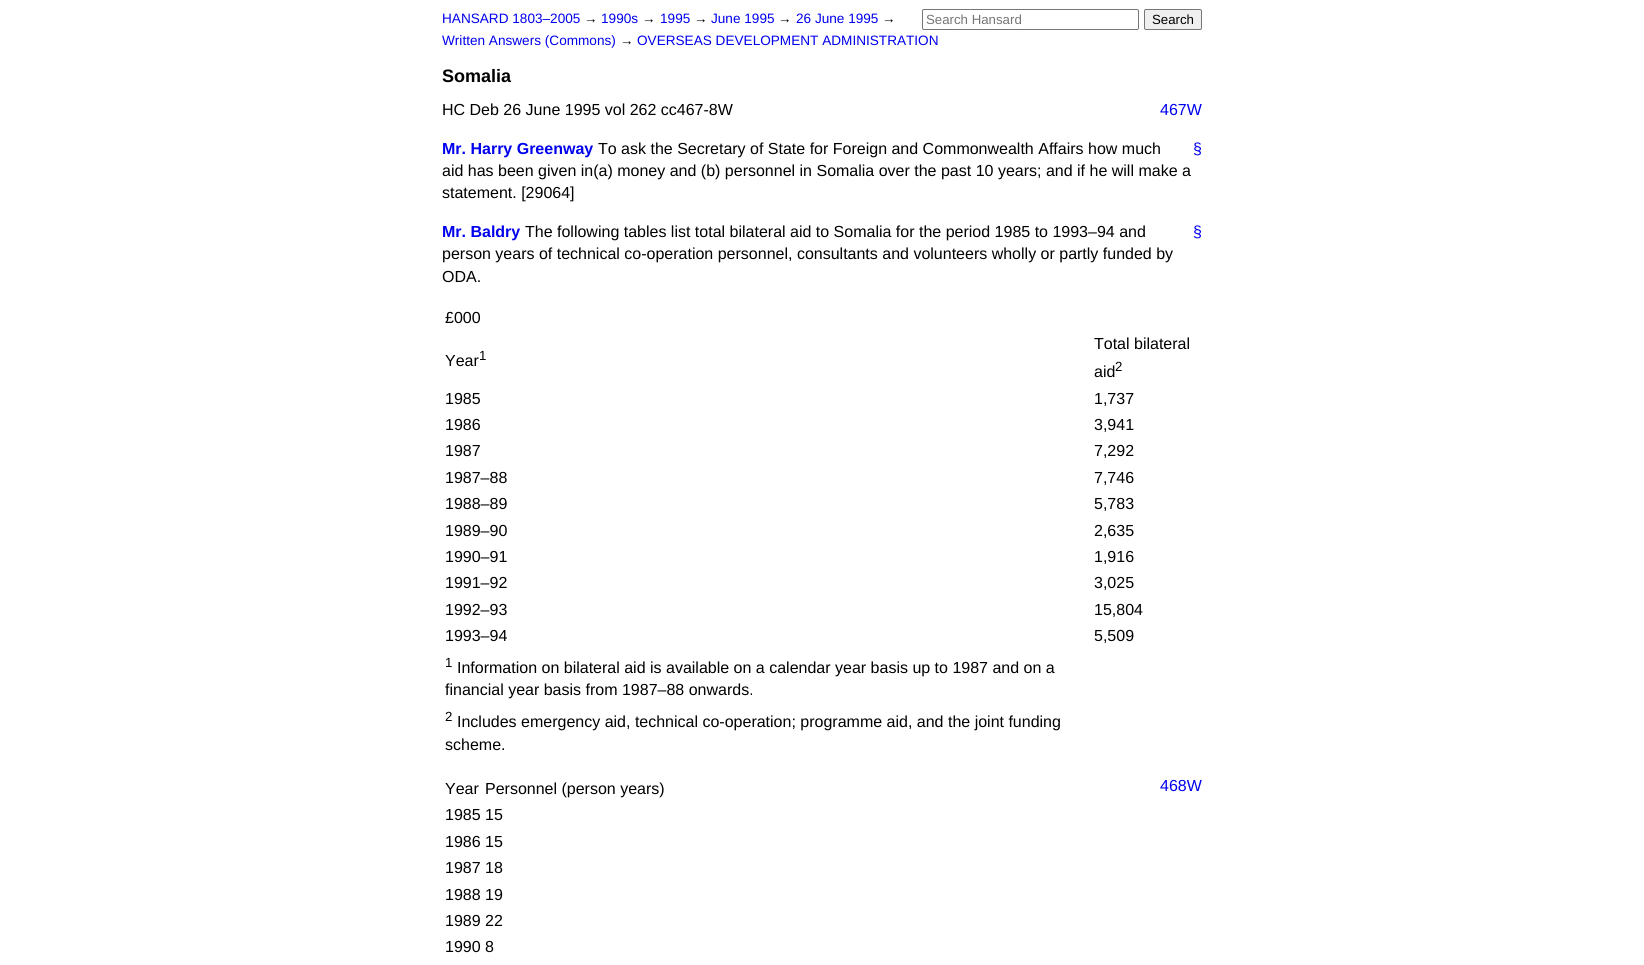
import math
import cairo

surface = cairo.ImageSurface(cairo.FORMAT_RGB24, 1644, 965)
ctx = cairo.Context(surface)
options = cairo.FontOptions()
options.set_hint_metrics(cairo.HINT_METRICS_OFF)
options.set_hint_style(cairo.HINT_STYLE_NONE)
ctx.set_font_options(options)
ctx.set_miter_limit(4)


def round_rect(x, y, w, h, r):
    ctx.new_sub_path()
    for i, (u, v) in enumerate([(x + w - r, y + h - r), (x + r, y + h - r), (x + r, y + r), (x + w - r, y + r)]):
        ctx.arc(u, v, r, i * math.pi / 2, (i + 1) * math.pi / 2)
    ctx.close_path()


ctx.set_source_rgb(1, 1, 1)
ctx.paint()
ctx.select_font_face("Liberation Sans")
ctx.set_font_size(13.6)
ctx.set_source_rgb(0, 0, 0.933)
ctx.move_to(442, 23)
ctx.show_text("HANSARD 1803–2005")
ctx.set_source_rgb(0, 0, 0)
ctx.move_to(584, 23)
ctx.show_text("→")
ctx.set_source_rgb(0, 0, 0.933)
ctx.move_to(601, 23)
ctx.show_text("1990s")
ctx.set_source_rgb(0, 0, 0)
ctx.move_to(642, 23)
ctx.show_text("→")
ctx.set_source_rgb(0, 0, 0.933)
ctx.move_to(660, 23)
ctx.show_text("1995")
ctx.set_source_rgb(0, 0, 0)
ctx.move_to(694, 23)
ctx.show_text("→")
ctx.set_source_rgb(0, 0, 0.933)
ctx.move_to(711, 23)
ctx.show_text("June 1995")
ctx.set_source_rgb(0, 0, 0)
ctx.move_to(778, 23)
ctx.show_text("→")
ctx.set_source_rgb(0, 0, 0.933)
ctx.move_to(796, 23)
ctx.show_text("26 June 1995")
ctx.set_source_rgb(0, 0, 0)
ctx.move_to(882, 23)
ctx.show_text("→")
ctx.set_source_rgb(0, 0, 0.933)
ctx.move_to(442, 45)
ctx.show_text("Written Answers (Commons)")
ctx.set_source_rgb(0, 0, 0)
ctx.move_to(620, 45)
ctx.show_text("→")
ctx.set_source_rgb(0, 0, 0.933)
ctx.move_to(637, 45)
ctx.show_text("OVERSEAS DEVELOPMENT ADMINISTRATION")
round_rect(922.5, 9.5, 216, 20, 1.5)
ctx.set_source_rgb(0.463, 0.463, 0.463)
ctx.set_line_width(1)
ctx.stroke()
ctx.set_font_size(13.25)
ctx.set_source_rgb(0.459, 0.459, 0.459)
ctx.move_to(926, 24)
ctx.show_text("Search Hansard")
ctx.set_source_rgb(0.937, 0.937, 0.937)
round_rect(1144.5, 9.5, 57, 20, 1.5)
ctx.fill_preserve()
ctx.set_source_rgb(0.463, 0.463, 0.463)
ctx.stroke()
ctx.set_source_rgb(0, 0, 0)
ctx.move_to(1152, 24)
ctx.show_text("Search")
ctx.select_font_face("Liberation Sans", cairo.FONT_SLANT_NORMAL, cairo.FONT_WEIGHT_BOLD)
ctx.set_font_size(18)
ctx.move_to(442, 82)
ctx.show_text("Somalia")
ctx.select_font_face("Liberation Sans")
ctx.set_font_size(16)
ctx.move_to(442, 115)
ctx.show_text("HC Deb 26 June 1995 vol 262 cc467-8W")
ctx.set_source_rgb(0, 0, 0.933)
ctx.move_to(1160, 115)
ctx.show_text("467W")
ctx.select_font_face("Liberation Sans", cairo.FONT_SLANT_NORMAL, cairo.FONT_WEIGHT_BOLD)
ctx.move_to(442, 154)
ctx.show_text("Mr. Harry Greenway")
ctx.select_font_face("Liberation Sans")
ctx.set_source_rgb(0, 0, 0)
ctx.move_to(598, 154)
ctx.show_text("To ask the Secretary of State for Foreign and Commonwealth Affairs how much")
ctx.set_source_rgb(0, 0, 0.933)
ctx.move_to(1193, 154)
ctx.show_text("§")
ctx.set_source_rgb(0, 0, 0)
ctx.move_to(442, 176)
ctx.show_text("aid has been given in(a) money and (b) personnel in Somalia over the past 10 years; and if he will make a")
ctx.move_to(442, 198)
ctx.show_text("statement. [29064]")
ctx.select_font_face("Liberation Sans", cairo.FONT_SLANT_NORMAL, cairo.FONT_WEIGHT_BOLD)
ctx.set_source_rgb(0, 0, 0.933)
ctx.move_to(442, 237)
ctx.show_text("Mr. Baldry")
ctx.select_font_face("Liberation Sans")
ctx.set_source_rgb(0, 0, 0)
ctx.move_to(525, 237)
ctx.show_text("The following tables list total bilateral aid to Somalia for the period 1985 to 1993–94 and")
ctx.set_source_rgb(0, 0, 0.933)
ctx.move_to(1193, 237)
ctx.show_text("§")
ctx.set_source_rgb(0, 0, 0)
ctx.move_to(442, 259)
ctx.show_text("person years of technical co-operation personnel, consultants and volunteers wholly or partly funded by")
ctx.move_to(442, 282)
ctx.show_text("ODA.")
ctx.move_to(445, 323)
ctx.show_text("£000")
ctx.move_to(445, 366)
ctx.show_text("Year")
ctx.set_font_size(13.25)
ctx.move_to(479, 360)
ctx.show_text("1")
ctx.set_font_size(16)
ctx.move_to(1094, 349)
ctx.show_text("Total bilateral")
ctx.move_to(1094, 377)
ctx.show_text("aid")
ctx.set_font_size(13.25)
ctx.move_to(1115, 371)
ctx.show_text("2")
ctx.set_font_size(16)
ctx.move_to(445, 404)
ctx.show_text("1985")
ctx.move_to(1094, 404)
ctx.show_text("1,737")
ctx.move_to(445, 430)
ctx.show_text("1986")
ctx.move_to(1094, 430)
ctx.show_text("3,941")
ctx.move_to(445, 456)
ctx.show_text("1987")
ctx.move_to(1094, 456)
ctx.show_text("7,292")
ctx.move_to(445, 483)
ctx.show_text("1987–88")
ctx.move_to(1094, 483)
ctx.show_text("7,746")
ctx.move_to(445, 509)
ctx.show_text("1988–89")
ctx.move_to(1094, 509)
ctx.show_text("5,783")
ctx.move_to(445, 536)
ctx.show_text("1989–90")
ctx.move_to(1094, 536)
ctx.show_text("2,635")
ctx.move_to(445, 562)
ctx.show_text("1990–91")
ctx.move_to(1094, 562)
ctx.show_text("1,916")
ctx.move_to(445, 588)
ctx.show_text("1991–92")
ctx.move_to(1094, 588)
ctx.show_text("3,025")
ctx.move_to(445, 615)
ctx.show_text("1992–93")
ctx.move_to(1094, 615)
ctx.show_text("15,804")
ctx.move_to(445, 641)
ctx.show_text("1993–94")
ctx.move_to(1094, 641)
ctx.show_text("5,509")
ctx.set_font_size(13.25)
ctx.move_to(445, 667)
ctx.show_text("1")
ctx.set_font_size(16)
ctx.move_to(457, 673)
ctx.show_text("Information on bilateral aid is available on a calendar year basis up to 1987 and on a")
ctx.move_to(445, 695)
ctx.show_text("financial year basis from 1987–88 onwards.")
ctx.set_font_size(13.25)
ctx.move_to(445, 721)
ctx.show_text("2")
ctx.set_font_size(16)
ctx.move_to(457, 727)
ctx.show_text("Includes emergency aid, technical co-operation; programme aid, and the joint funding")
ctx.move_to(445, 750)
ctx.show_text("scheme.")
ctx.move_to(445, 794)
ctx.show_text("Year")
ctx.move_to(485, 794)
ctx.show_text("Personnel (person years)")
ctx.move_to(445, 820)
ctx.show_text("1985")
ctx.move_to(485, 820)
ctx.show_text("15")
ctx.move_to(445, 847)
ctx.show_text("1986")
ctx.move_to(485, 847)
ctx.show_text("15")
ctx.move_to(445, 873)
ctx.show_text("1987")
ctx.move_to(485, 873)
ctx.show_text("18")
ctx.move_to(445, 900)
ctx.show_text("1988")
ctx.move_to(485, 900)
ctx.show_text("19")
ctx.move_to(445, 926)
ctx.show_text("1989")
ctx.move_to(485, 926)
ctx.show_text("22")
ctx.move_to(445, 952)
ctx.show_text("1990")
ctx.move_to(485, 952)
ctx.show_text("8")
ctx.set_source_rgb(0, 0, 0.933)
ctx.move_to(1160, 791)
ctx.show_text("468W")
surface.write_to_png("page.png")
